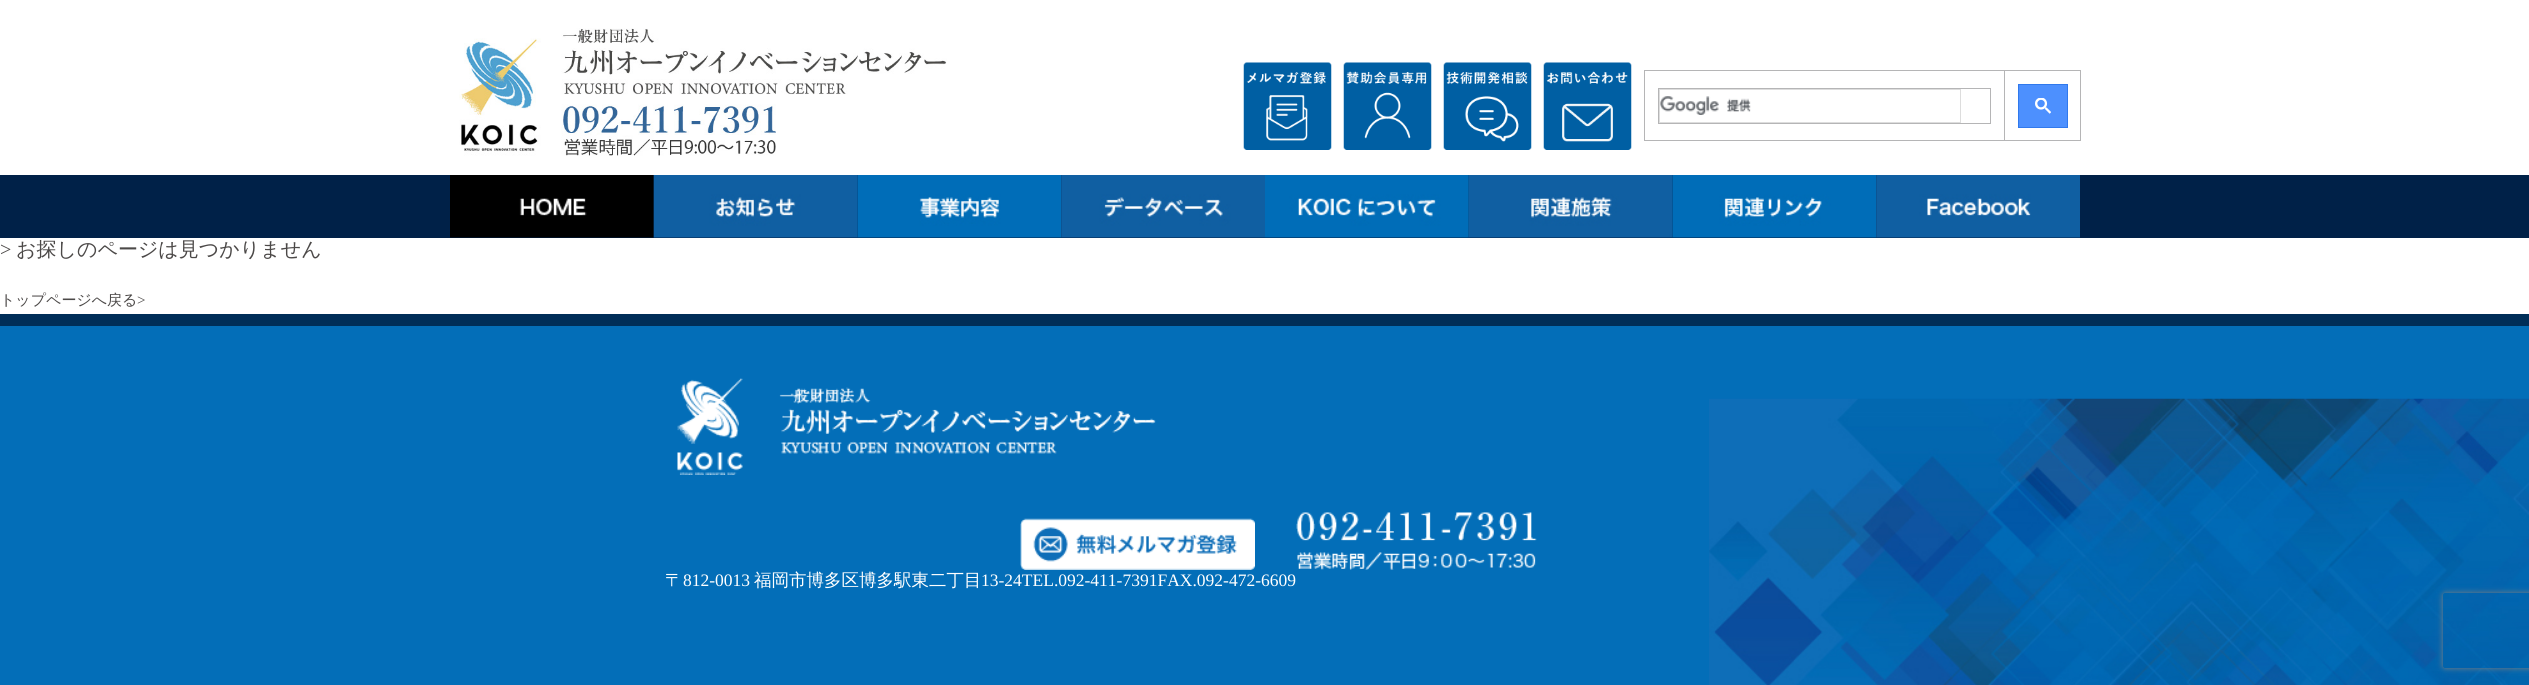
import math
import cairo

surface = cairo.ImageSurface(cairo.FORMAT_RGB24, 2529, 685)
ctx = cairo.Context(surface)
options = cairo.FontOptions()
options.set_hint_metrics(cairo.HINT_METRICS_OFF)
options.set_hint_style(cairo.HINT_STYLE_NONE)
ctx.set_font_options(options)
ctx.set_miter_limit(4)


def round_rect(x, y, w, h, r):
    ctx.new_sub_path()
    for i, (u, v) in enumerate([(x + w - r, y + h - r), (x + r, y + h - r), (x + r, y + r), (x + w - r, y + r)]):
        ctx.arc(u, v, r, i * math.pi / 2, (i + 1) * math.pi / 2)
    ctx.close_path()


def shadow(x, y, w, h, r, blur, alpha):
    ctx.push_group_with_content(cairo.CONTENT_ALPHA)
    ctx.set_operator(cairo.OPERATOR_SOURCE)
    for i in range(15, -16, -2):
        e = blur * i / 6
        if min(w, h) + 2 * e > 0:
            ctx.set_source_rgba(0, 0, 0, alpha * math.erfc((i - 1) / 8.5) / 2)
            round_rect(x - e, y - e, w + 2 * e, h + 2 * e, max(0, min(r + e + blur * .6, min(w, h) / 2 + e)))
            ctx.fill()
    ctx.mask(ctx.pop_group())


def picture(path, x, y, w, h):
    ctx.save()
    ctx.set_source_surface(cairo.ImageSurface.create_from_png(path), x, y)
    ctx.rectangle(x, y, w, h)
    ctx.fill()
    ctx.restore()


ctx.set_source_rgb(1, 1, 1)
ctx.paint()
picture("img1.png", 459, 28, 488, 128)
picture("img2.png", 1243, 62, 89, 88)
picture("img3.png", 1343, 62, 89, 88)
picture("img4.png", 1443, 62, 89, 88)
picture("img5.png", 1543, 62, 89, 88)
ctx.set_source_rgb(0.71, 0.71, 0.714)
ctx.rectangle(2004, 70, 77, 1)
ctx.fill()
ctx.rectangle(2080, 70, 1, 71)
ctx.fill()
ctx.rectangle(2004, 140, 77, 1)
ctx.fill()
ctx.rectangle(2004, 70, 1, 71)
ctx.fill()
ctx.rectangle(1644, 70, 361, 1)
ctx.fill()
ctx.rectangle(1644, 140, 361, 1)
ctx.fill()
ctx.rectangle(1644, 70, 1, 71)
ctx.fill()
ctx.rectangle(1658, 123, 333, 1)
ctx.fill()
ctx.rectangle(1658, 88, 333, 1)
ctx.fill()
ctx.rectangle(1990, 88, 1, 36)
ctx.fill()
ctx.rectangle(1658, 88, 1, 36)
ctx.fill()
picture("img6.png", 1660, 96, 91, 19)
ctx.rectangle(1659.5, 89.5, 301, 33)
ctx.set_source_rgb(0.867, 0.867, 0.867)
ctx.set_line_width(1)
ctx.stroke()
ctx.set_source_rgb(0.302, 0.565, 0.996)
ctx.rectangle(2018.5, 84.5, 49, 43)
ctx.fill_preserve()
ctx.set_source_rgb(0.188, 0.475, 0.929)
ctx.stroke()
picture("img7.png", 2035, 98, 16, 16)
ctx.set_source_rgb(0, 0.129, 0.282)
ctx.rectangle(0, 175, 2529, 63)
ctx.fill()
picture("img8.png", 450, 175, 204, 63)
picture("img9.png", 653, 175, 205, 63)
picture("img10.png", 857, 175, 205, 63)
picture("img11.png", 1061, 175, 204, 63)
picture("img12.png", 1265, 175, 204, 63)
picture("img13.png", 1468, 175, 205, 63)
picture("img14.png", 1672, 175, 205, 63)
picture("img15.png", 1876, 175, 204, 63)
ctx.select_font_face("Liberation Serif")
ctx.set_font_size(20)
ctx.set_source_rgb(0.298, 0.286, 0.282)
ctx.move_to(0, 256)
ctx.show_text(">")
ctx.select_font_face("WenQuanYi Zen Hei Medium")
ctx.move_to(16, 256)
ctx.show_text("お探しのページは見つかりません")
ctx.set_font_size(15)
ctx.move_to(0, 305)
ctx.show_text("トップページへ戻る")
ctx.select_font_face("Liberation Serif")
ctx.move_to(137, 305)
ctx.show_text(">")
ctx.set_source_rgb(0.012, 0.431, 0.722)
ctx.rectangle(0, 326, 2529, 359)
ctx.fill()
picture("img16.png", 1709, 398, 820, 287)
ctx.set_source_rgb(0, 0.18, 0.345)
ctx.rectangle(0, 314, 2529, 12)
ctx.fill()
picture("img17.png", 677, 378, 479, 97)
picture("img18.png", 1020, 518, 235, 52)
picture("img19.png", 1296, 512, 241, 58)
ctx.select_font_face("WenQuanYi Zen Hei Medium")
ctx.set_font_size(17.5)
ctx.set_source_rgb(1, 1, 1)
ctx.move_to(665, 586)
ctx.show_text("〒")
ctx.select_font_face("Liberation Serif")
ctx.move_to(683, 586)
ctx.show_text("812-0013")
ctx.select_font_face("WenQuanYi Zen Hei Medium")
ctx.move_to(754, 586)
ctx.show_text("福岡市博多区博多駅東二丁目")
ctx.select_font_face("Liberation Serif")
ctx.move_to(981, 586)
ctx.show_text("13-24TEL.092-411-7391FAX.092-472-6609")
ctx.save()
ctx.set_fill_rule(cairo.FILL_RULE_EVEN_ODD)
ctx.new_path()
ctx.move_to(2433, 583)
ctx.line_to(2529, 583)
ctx.line_to(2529, 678)
ctx.line_to(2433, 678)
ctx.close_path()
ctx.move_to(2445.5, 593)
ctx.line_to(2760.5, 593)
ctx.curve_to(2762, 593, 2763, 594, 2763, 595.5)
ctx.line_to(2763, 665.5)
ctx.curve_to(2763, 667, 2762, 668, 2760.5, 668)
ctx.line_to(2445.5, 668)
ctx.curve_to(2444, 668, 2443, 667, 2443, 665.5)
ctx.line_to(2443, 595.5)
ctx.curve_to(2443, 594, 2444, 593, 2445.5, 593)
ctx.close_path()
ctx.clip()
ctx.set_source_rgb(0.502, 0.502, 0.502)
shadow(2443, 593, 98, 75, 2.5, 3, 1)
ctx.restore()
surface.write_to_png("page.png")
